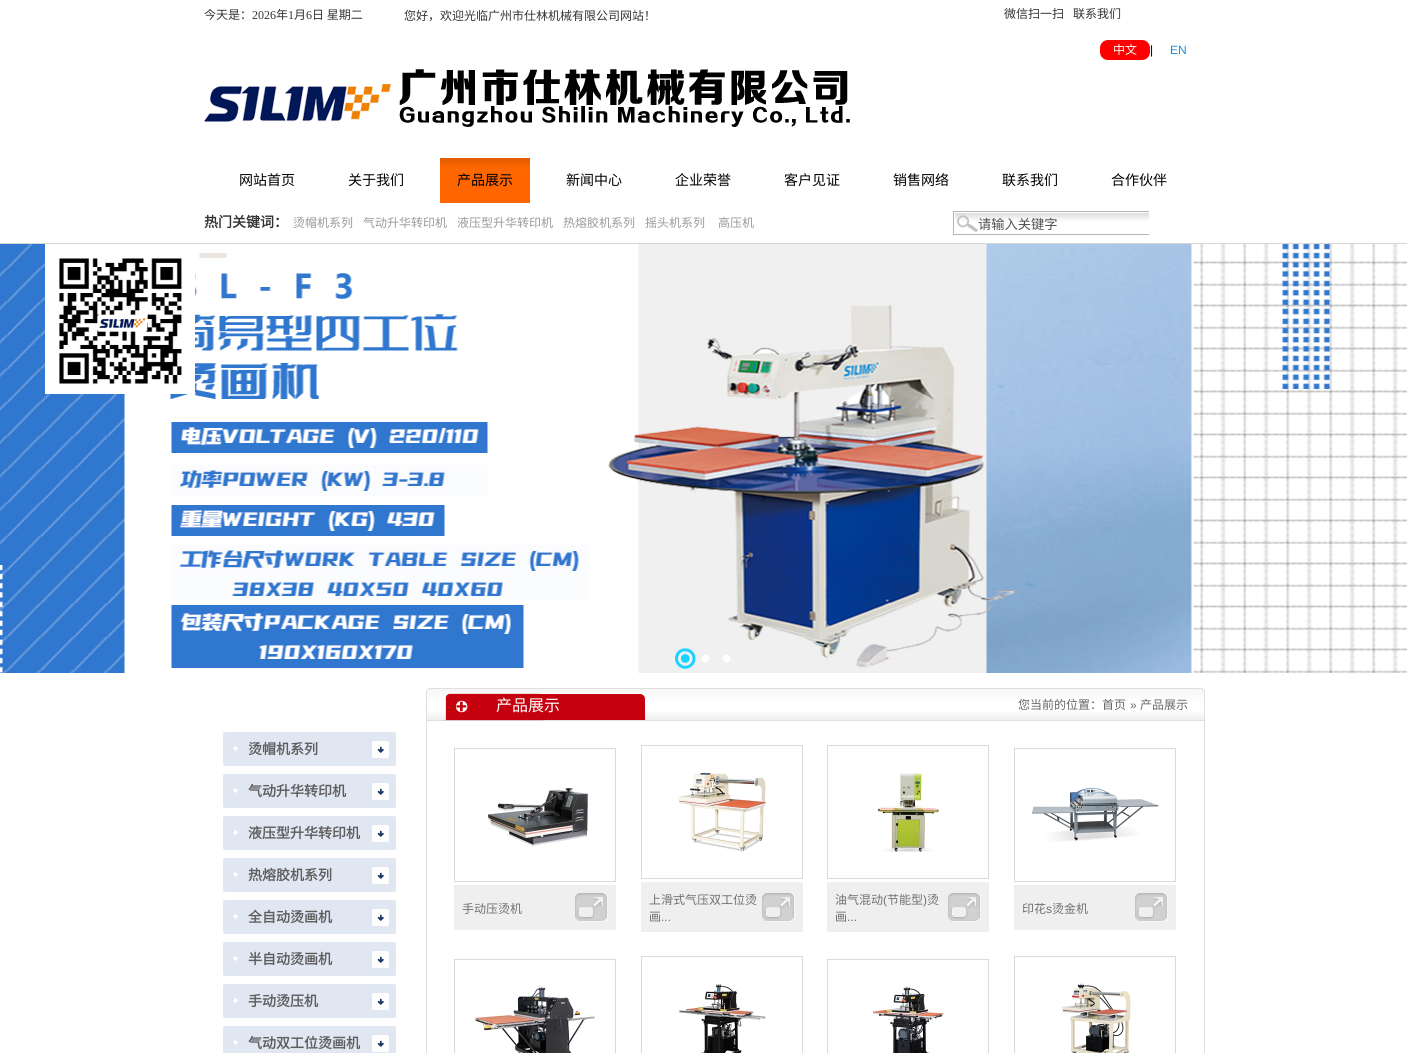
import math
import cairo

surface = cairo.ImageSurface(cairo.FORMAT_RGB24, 1407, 1053)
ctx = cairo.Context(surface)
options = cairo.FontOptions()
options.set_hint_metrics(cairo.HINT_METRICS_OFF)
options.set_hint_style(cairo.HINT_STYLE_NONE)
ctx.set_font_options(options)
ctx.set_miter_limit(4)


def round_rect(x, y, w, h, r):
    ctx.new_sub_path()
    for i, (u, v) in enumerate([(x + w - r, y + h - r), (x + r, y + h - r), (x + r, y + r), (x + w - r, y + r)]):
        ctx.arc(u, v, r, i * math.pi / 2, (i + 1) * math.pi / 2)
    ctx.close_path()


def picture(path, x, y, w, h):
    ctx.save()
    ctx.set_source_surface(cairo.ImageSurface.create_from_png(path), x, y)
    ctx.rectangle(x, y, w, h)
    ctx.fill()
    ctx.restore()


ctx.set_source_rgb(1, 1, 1)
ctx.paint()
picture("img5.png", 0, 244, 1407, 429)
picture("img1.png", 45, 244, 150, 150)
ctx.select_font_face("Noto Sans CJK SC")
ctx.set_font_size(12)
ctx.set_source_rgb(0.2, 0.2, 0.2)
ctx.move_to(204, 19)
ctx.show_text("今天是：")
ctx.select_font_face("Liberation Serif")
ctx.move_to(252, 19)
ctx.show_text("2026")
ctx.select_font_face("Noto Sans CJK SC")
ctx.move_to(276, 19)
ctx.show_text("年")
ctx.select_font_face("Liberation Serif")
ctx.move_to(288, 19)
ctx.show_text("1")
ctx.select_font_face("Noto Sans CJK SC")
ctx.move_to(294, 19)
ctx.show_text("月")
ctx.select_font_face("Liberation Serif")
ctx.move_to(306, 19)
ctx.show_text("6")
ctx.select_font_face("Noto Sans CJK SC")
ctx.move_to(312, 19)
ctx.show_text("日 星期二")
ctx.move_to(404, 20)
ctx.show_text("您好，欢迎光临广州市仕林机械有限公司网站！")
ctx.move_to(1004, 18)
ctx.show_text("微信扫一扫")
ctx.move_to(1073, 18)
ctx.show_text("联系我们")
ctx.set_source_rgb(1, 0, 0)
round_rect(1100, 40, 50, 20, 8)
ctx.fill()
ctx.set_source_rgb(1, 1, 1)
ctx.move_to(1113, 54)
ctx.show_text("中文")
ctx.select_font_face("Liberation Sans")
ctx.set_source_rgb(0, 0, 0)
ctx.move_to(1150, 54)
ctx.show_text("|")
ctx.set_source_rgb(0.094, 0.549, 0.875)
ctx.move_to(1170, 54)
ctx.show_text("EN")
picture("img2.png", 204, 69, 646, 58)
ctx.select_font_face("Noto Sans CJK SC")
ctx.set_font_size(14)
ctx.set_source_rgb(0, 0, 0)
ctx.move_to(239, 185)
ctx.show_text("网站首页")
ctx.move_to(348, 185)
ctx.show_text("关于我们")
picture("img3.png", 440, 158, 90, 45)
ctx.move_to(457, 185)
ctx.show_text("产品展示")
ctx.move_to(566, 185)
ctx.show_text("新闻中心")
ctx.move_to(675, 185)
ctx.show_text("企业荣誉")
ctx.move_to(784, 185)
ctx.show_text("客户见证")
ctx.move_to(893, 185)
ctx.show_text("销售网络")
ctx.move_to(1002, 185)
ctx.show_text("联系我们")
ctx.move_to(1111, 185)
ctx.show_text("合作伙伴")
ctx.select_font_face("Noto Sans CJK SC", cairo.FONT_SLANT_NORMAL, cairo.FONT_WEIGHT_BOLD)
ctx.set_source_rgb(0.2, 0.2, 0.2)
ctx.move_to(204, 227)
ctx.show_text("热门关键词：")
ctx.select_font_face("Noto Sans CJK SC")
ctx.set_font_size(12)
ctx.set_source_rgb(0.6, 0.6, 0.6)
ctx.move_to(293, 227)
ctx.show_text("烫帽机系列")
ctx.move_to(363, 227)
ctx.show_text("气动升华转印机")
ctx.move_to(457, 227)
ctx.show_text("液压型升华转印机")
ctx.move_to(563, 227)
ctx.show_text("热熔胶机系列")
ctx.move_to(645, 227)
ctx.show_text("摇头机系列")
ctx.move_to(718, 227)
ctx.show_text("高压机")
picture("img4.png", 953, 211, 196, 24)
ctx.set_font_size(13.25)
ctx.set_source_rgb(0.314, 0.314, 0.314)
ctx.move_to(978, 229)
ctx.show_text("请输入关键字")
ctx.set_source_rgb(0.843, 0.843, 0.843)
ctx.rectangle(0, 243, 1407, 1)
ctx.fill()
picture("img6.png", 675, 648, 21, 21)
picture("img7.png", 701, 654, 9, 9)
picture("img7.png", 722, 654, 9, 9)
picture("img8.png", 223, 732, 173, 34)
ctx.select_font_face("Noto Sans CJK SC", cairo.FONT_SLANT_NORMAL, cairo.FONT_WEIGHT_BOLD)
ctx.set_font_size(14)
ctx.set_source_rgb(0.369, 0.369, 0.369)
ctx.move_to(248, 754)
ctx.show_text("烫帽机系列")
picture("img8.png", 223, 774, 173, 34)
ctx.move_to(248, 796)
ctx.show_text("气动升华转印机")
picture("img8.png", 223, 816, 173, 34)
ctx.move_to(248, 838)
ctx.show_text("液压型升华转印机")
picture("img8.png", 223, 858, 173, 34)
ctx.move_to(248, 880)
ctx.show_text("热熔胶机系列")
picture("img8.png", 223, 900, 173, 34)
ctx.move_to(248, 922)
ctx.show_text("全自动烫画机")
picture("img8.png", 223, 942, 173, 34)
ctx.move_to(248, 964)
ctx.show_text("半自动烫画机")
picture("img8.png", 223, 984, 173, 34)
ctx.move_to(248, 1006)
ctx.show_text("手动烫压机")
picture("img9.png", 223, 1026, 173, 27)
ctx.move_to(248, 1048)
ctx.show_text("气动双工位烫画机")
picture("img10.png", 426, 688, 779, 34)
ctx.select_font_face("Noto Sans CJK SC")
ctx.set_font_size(16)
ctx.set_source_rgb(1, 1, 1)
ctx.move_to(496, 711)
ctx.show_text("产品展示")
ctx.set_font_size(12)
ctx.set_source_rgb(0.4, 0.4, 0.4)
ctx.move_to(1018, 709)
ctx.show_text("您当前的位置：首页")
ctx.select_font_face("Liberation Sans")
ctx.move_to(1130, 709)
ctx.show_text("»")
ctx.select_font_face("Noto Sans CJK SC")
ctx.move_to(1140, 709)
ctx.show_text("产品展示")
ctx.set_source_rgb(0.867, 0.867, 0.867)
ctx.rectangle(1204, 722, 1, 331)
ctx.fill()
ctx.rectangle(426, 722, 1, 331)
ctx.fill()
ctx.rectangle(454.5, 748.5, 161, 133)
ctx.set_source_rgb(0.855, 0.855, 0.855)
ctx.set_line_width(1)
ctx.stroke()
picture("img11.png", 488, 788, 100, 59)
ctx.set_source_rgb(0.937, 0.937, 0.937)
ctx.rectangle(454, 885, 162, 45)
ctx.fill()
ctx.set_source_rgb(0.439, 0.439, 0.439)
ctx.move_to(462, 913)
ctx.show_text("手动压烫机")
picture("img12.png", 575, 893, 33, 29)
ctx.rectangle(641.5, 745.5, 161, 133)
ctx.set_source_rgb(0.855, 0.855, 0.855)
ctx.stroke()
picture("img13.png", 678, 772, 88, 80)
ctx.set_source_rgb(0.937, 0.937, 0.937)
ctx.rectangle(641, 882, 162, 50)
ctx.fill()
ctx.set_source_rgb(0.439, 0.439, 0.439)
ctx.move_to(649, 904)
ctx.show_text("上滑式气压双工位烫")
ctx.move_to(649, 921)
ctx.show_text("画")
ctx.select_font_face("Liberation Sans")
ctx.move_to(661, 921)
ctx.show_text("...")
picture("img12.png", 762, 893, 33, 29)
ctx.rectangle(827.5, 745.5, 161, 133)
ctx.set_source_rgb(0.855, 0.855, 0.855)
ctx.stroke()
picture("img14.png", 877, 773, 62, 79)
ctx.set_source_rgb(0.937, 0.937, 0.937)
ctx.rectangle(827, 882, 162, 50)
ctx.fill()
ctx.select_font_face("Noto Sans CJK SC")
ctx.set_source_rgb(0.439, 0.439, 0.439)
ctx.move_to(835, 904)
ctx.show_text("油气混动")
ctx.select_font_face("Liberation Sans")
ctx.move_to(883, 904)
ctx.show_text("(")
ctx.select_font_face("Noto Sans CJK SC")
ctx.move_to(887, 904)
ctx.show_text("节能型")
ctx.select_font_face("Liberation Sans")
ctx.move_to(923, 904)
ctx.show_text(")")
ctx.select_font_face("Noto Sans CJK SC")
ctx.move_to(927, 904)
ctx.show_text("烫")
ctx.move_to(835, 921)
ctx.show_text("画")
ctx.select_font_face("Liberation Sans")
ctx.move_to(847, 921)
ctx.show_text("...")
picture("img12.png", 948, 893, 33, 29)
ctx.rectangle(1014.5, 748.5, 161, 133)
ctx.set_source_rgb(0.855, 0.855, 0.855)
ctx.stroke()
picture("img15.png", 1032, 787, 127, 55)
ctx.set_source_rgb(0.937, 0.937, 0.937)
ctx.rectangle(1014, 885, 162, 45)
ctx.fill()
ctx.select_font_face("Noto Sans CJK SC")
ctx.set_source_rgb(0.439, 0.439, 0.439)
ctx.move_to(1022, 913)
ctx.show_text("印花")
ctx.select_font_face("Liberation Sans")
ctx.move_to(1046, 913)
ctx.show_text("s")
ctx.select_font_face("Noto Sans CJK SC")
ctx.move_to(1052, 913)
ctx.show_text("烫金机")
picture("img12.png", 1135, 893, 33, 29)
ctx.rectangle(454.5, 959.5, 161, 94)
ctx.set_source_rgb(0.855, 0.855, 0.855)
ctx.stroke()
picture("img16.png", 475, 986, 120, 67)
ctx.rectangle(641.5, 956.5, 161, 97)
ctx.stroke()
picture("img17.png", 679, 984, 87, 69)
ctx.rectangle(827.5, 959.5, 161, 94)
ctx.stroke()
picture("img18.png", 872, 986, 72, 67)
ctx.rectangle(1014.5, 956.5, 161, 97)
ctx.stroke()
picture("img19.png", 1061, 983, 70, 70)
surface.write_to_png("page.png")
